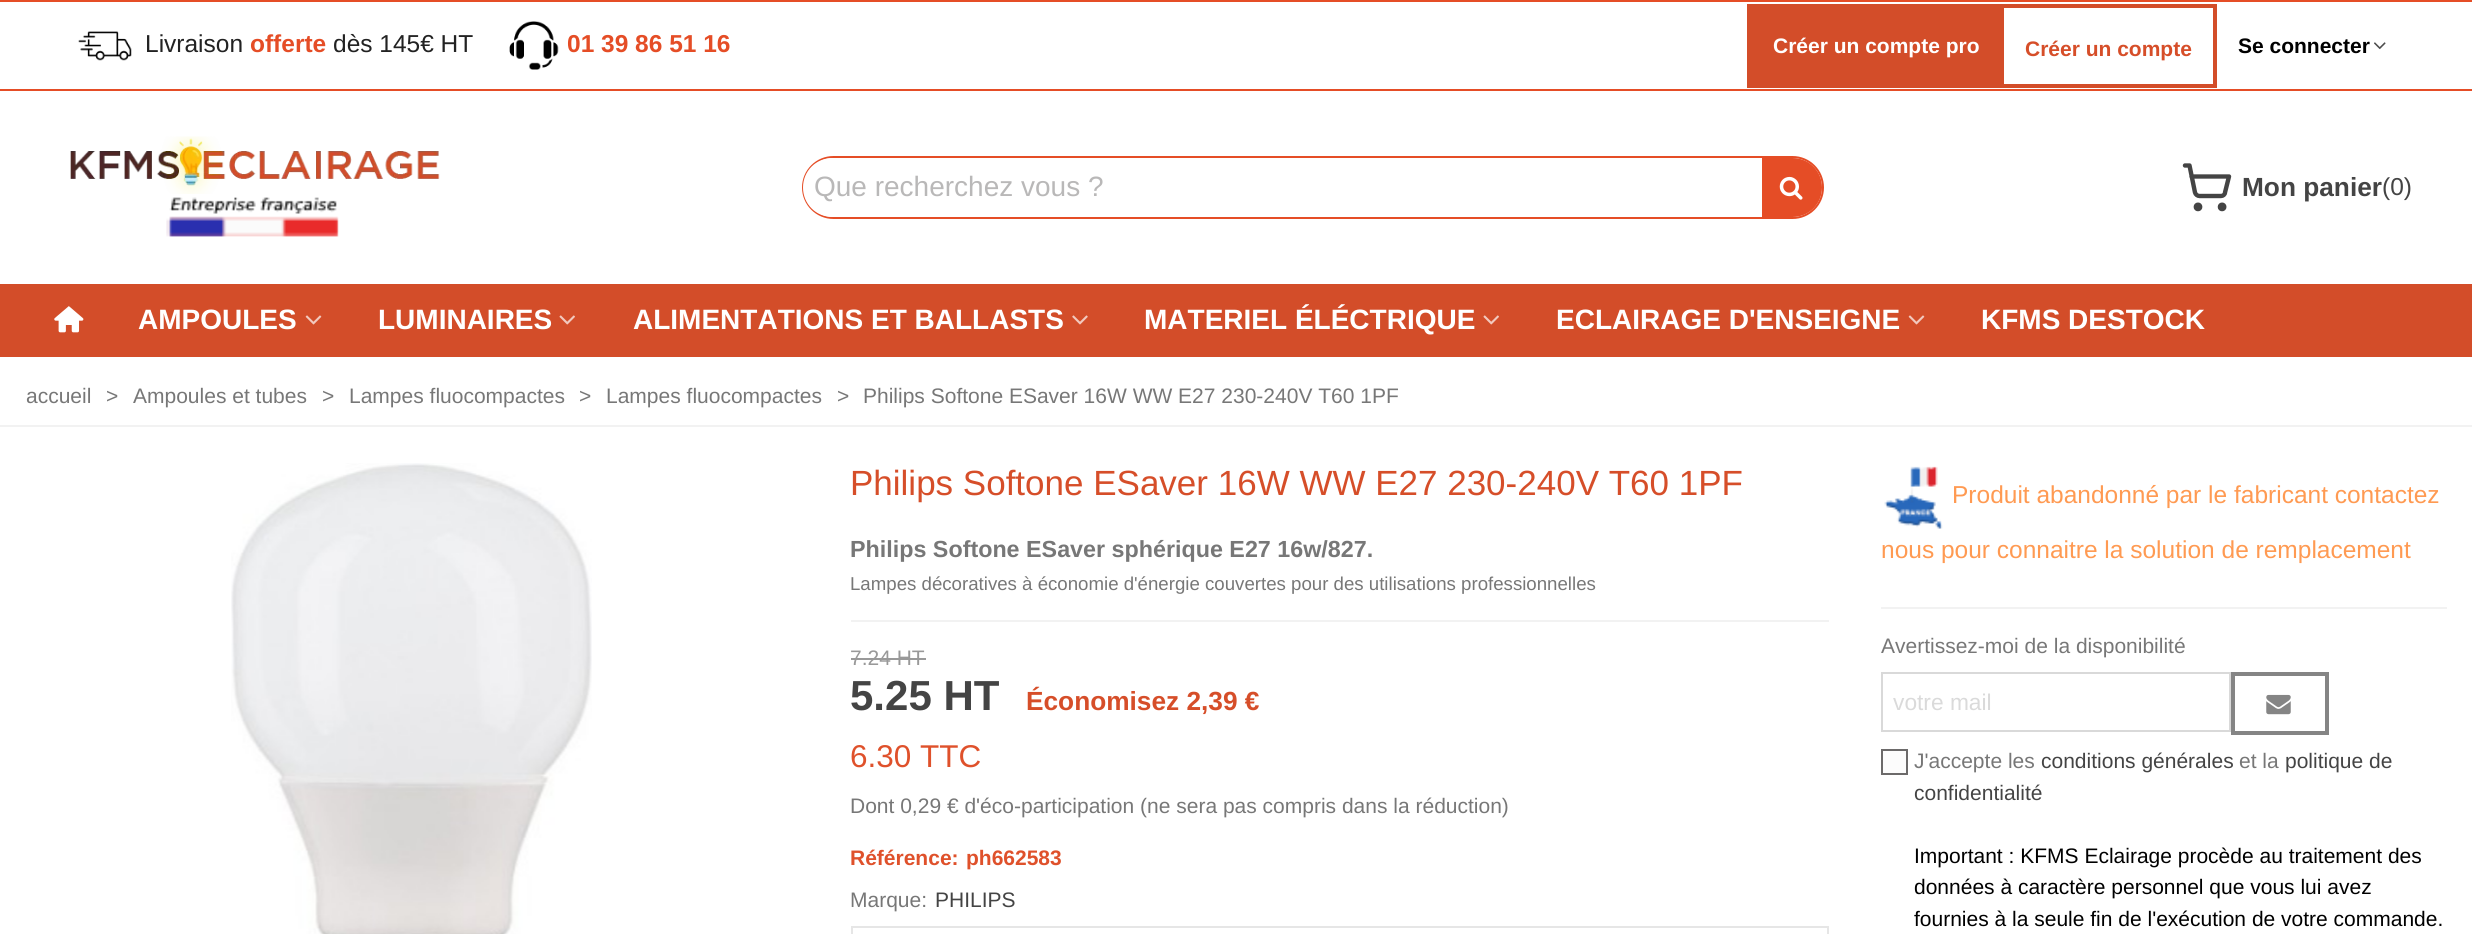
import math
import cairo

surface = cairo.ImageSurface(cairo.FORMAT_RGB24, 2472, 934)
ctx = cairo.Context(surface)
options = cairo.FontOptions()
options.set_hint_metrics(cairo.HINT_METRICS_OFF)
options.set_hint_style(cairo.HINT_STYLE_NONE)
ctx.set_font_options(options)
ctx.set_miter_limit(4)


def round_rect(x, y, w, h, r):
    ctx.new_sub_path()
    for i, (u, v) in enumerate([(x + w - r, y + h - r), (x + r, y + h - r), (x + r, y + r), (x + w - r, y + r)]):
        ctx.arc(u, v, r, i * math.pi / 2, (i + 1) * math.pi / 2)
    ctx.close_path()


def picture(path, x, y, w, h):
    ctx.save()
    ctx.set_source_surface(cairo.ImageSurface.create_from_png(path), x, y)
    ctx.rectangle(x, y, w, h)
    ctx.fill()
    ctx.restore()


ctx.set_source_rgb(1, 1, 1)
ctx.paint()
ctx.set_source_rgb(0.898, 0.302, 0.149)
ctx.rectangle(0, 0, 2472, 2)
ctx.fill()
ctx.rectangle(0, 89, 2472, 2)
ctx.fill()
picture("img1.png", 78, 31, 54, 30)
ctx.select_font_face("Liberation Sans")
ctx.set_font_size(24.5)
ctx.set_source_rgb(0.133, 0.133, 0.133)
ctx.move_to(145, 52)
ctx.show_text("Livraison")
ctx.select_font_face("Liberation Sans", cairo.FONT_SLANT_NORMAL, cairo.FONT_WEIGHT_BOLD)
ctx.set_source_rgb(0.898, 0.302, 0.149)
ctx.move_to(250, 52)
ctx.show_text("offerte")
ctx.select_font_face("Liberation Sans")
ctx.set_source_rgb(0.133, 0.133, 0.133)
ctx.move_to(333, 52)
ctx.show_text("dès 145€ HT")
picture("img2.png", 509, 21, 50, 49)
ctx.select_font_face("Liberation Sans", cairo.FONT_SLANT_NORMAL, cairo.FONT_WEIGHT_BOLD)
ctx.set_source_rgb(0.898, 0.302, 0.149)
ctx.move_to(567, 52)
ctx.show_text("01 39 86 51 16")
ctx.set_source_rgb(0.827, 0.302, 0.161)
ctx.rectangle(1747, 4, 253, 84)
ctx.fill()
ctx.set_font_size(21)
ctx.set_source_rgb(1, 1, 1)
ctx.move_to(1773, 53)
ctx.show_text("Créer un compte pro")
ctx.rectangle(2002, 6, 213, 80)
ctx.set_source_rgb(0.827, 0.302, 0.161)
ctx.set_line_width(4)
ctx.stroke()
ctx.set_source_rgb(0.839, 0.306, 0.161)
ctx.move_to(2025, 56)
ctx.show_text("Créer un compte")
ctx.set_source_rgb(0, 0, 0)
ctx.move_to(2238, 53)
ctx.show_text("Se connecter")
picture("img3.png", 2374, 42, 12, 8)
picture("img4.png", 70, 136, 370, 58)
picture("img5.png", 166, 197, 173, 40)
round_rect(803, 157, 1020, 61, 30.5)
ctx.set_source_rgb(0.898, 0.302, 0.149)
ctx.set_line_width(2)
ctx.stroke()
ctx.set_source_rgb(1, 1, 1)
ctx.new_path()
ctx.move_to(832.5, 158)
ctx.line_to(1764, 158)
ctx.line_to(1764, 217)
ctx.line_to(832.5, 217)
ctx.curve_to(816, 217, 803, 204, 803, 187.5)
ctx.curve_to(803, 171, 816, 158, 832.5, 158)
ctx.close_path()
ctx.fill()
ctx.select_font_face("Liberation Sans")
ctx.set_font_size(28)
ctx.set_source_rgb(0.725, 0.722, 0.722)
ctx.move_to(814, 196)
ctx.show_text("Que recherchez vous ?")
ctx.set_source_rgb(0.898, 0.302, 0.149)
ctx.new_path()
ctx.move_to(1762, 158)
ctx.line_to(1792.5, 158)
ctx.curve_to(1809, 158, 1822, 171, 1822, 187.5)
ctx.curve_to(1822, 204, 1809, 217, 1792.5, 217)
ctx.line_to(1762, 217)
ctx.close_path()
ctx.fill()
picture("img6.png", 1779, 176, 24, 24)
ctx.arc(2198, 206.9, 2.2, 0, 2 * math.pi)
ctx.set_source_rgb(0.267, 0.267, 0.267)
ctx.set_line_width(4.4)
ctx.stroke()
ctx.arc(2222.1, 206.9, 2.2, 0, 2 * math.pi)
ctx.stroke()
ctx.new_path()
ctx.move_to(2185, 165.5)
ctx.line_to(2189.5, 165.5)
ctx.line_to(2195, 192.5)
ctx.curve_to(2195.5, 194.5, 2197.5, 196, 2199.5, 196)
ctx.line_to(2221, 196)
ctx.curve_to(2223, 196, 2225, 194.5, 2225, 192.5)
ctx.line_to(2229, 176.5)
ctx.line_to(2191.5, 176.5)
ctx.set_line_cap(cairo.LINE_CAP_ROUND)
ctx.set_line_join(cairo.LINE_JOIN_ROUND)
ctx.stroke()
ctx.select_font_face("Liberation Sans", cairo.FONT_SLANT_NORMAL, cairo.FONT_WEIGHT_BOLD)
ctx.set_font_size(26.25)
ctx.move_to(2242, 196)
ctx.show_text("Mon panier")
ctx.select_font_face("Liberation Sans")
ctx.set_font_size(24.5)
ctx.move_to(2382, 195)
ctx.show_text("(0)")
ctx.set_source_rgb(0.827, 0.302, 0.161)
ctx.rectangle(0, 284, 2472, 73)
ctx.fill()
picture("img7.png", 54, 306, 30, 27)
ctx.select_font_face("Liberation Sans", cairo.FONT_SLANT_NORMAL, cairo.FONT_WEIGHT_BOLD)
ctx.set_font_size(28)
ctx.set_source_rgb(1, 1, 1)
ctx.move_to(138, 329)
ctx.show_text("AMPOULES")
picture("img8.png", 305, 315, 17, 10)
ctx.move_to(378, 329)
ctx.show_text("LUMINAIRES")
picture("img9.png", 559, 315, 16, 10)
ctx.move_to(633, 329)
ctx.show_text("ALIMENTATIONS ET BALLASTS")
picture("img10.png", 1072, 315, 16, 10)
ctx.move_to(1144, 329)
ctx.show_text("MATERIEL ÉLÉCTRIQUE")
picture("img9.png", 1483, 315, 16, 10)
ctx.move_to(1556, 329)
ctx.show_text("ECLAIRAGE D'ENSEIGNE")
picture("img8.png", 1908, 315, 17, 10)
ctx.move_to(1981, 329)
ctx.show_text("KFMS DESTOCK")
ctx.set_source_rgb(0.949, 0.949, 0.949)
ctx.rectangle(0, 425, 2472, 2)
ctx.fill()
ctx.select_font_face("Liberation Sans")
ctx.set_font_size(21)
ctx.set_source_rgb(0.467, 0.467, 0.467)
ctx.move_to(26, 403)
ctx.show_text("accueil")
ctx.move_to(106, 403)
ctx.show_text(">")
ctx.move_to(133, 403)
ctx.show_text("Ampoules et tubes")
ctx.move_to(322, 403)
ctx.show_text(">")
ctx.move_to(349, 403)
ctx.show_text("Lampes fluocompactes")
ctx.move_to(579, 403)
ctx.show_text(">")
ctx.move_to(606, 403)
ctx.show_text("Lampes fluocompactes")
ctx.move_to(837, 403)
ctx.show_text(">")
ctx.move_to(863, 403)
ctx.show_text("Philips Softone ESaver 16W WW E27 230-240V T60 1PF")
picture("img11.png", 231, 463, 361, 471)
ctx.set_font_size(35)
ctx.set_source_rgb(0.839, 0.306, 0.161)
ctx.move_to(850, 495)
ctx.show_text("Philips Softone ESaver 16W WW E27 230-240V T60 1PF")
ctx.select_font_face("Liberation Sans", cairo.FONT_SLANT_NORMAL, cairo.FONT_WEIGHT_BOLD)
ctx.set_font_size(23.3)
ctx.set_source_rgb(0.467, 0.467, 0.467)
ctx.move_to(850, 557)
ctx.show_text("Philips Softone ESaver sphérique E27 16w/827.")
ctx.select_font_face("Liberation Sans")
ctx.set_font_size(18.65)
ctx.move_to(850, 590)
ctx.show_text("Lampes décoratives à économie d'énergie couvertes pour des utilisations professionnelles")
ctx.set_source_rgb(0.949, 0.949, 0.949)
ctx.rectangle(851, 620, 978, 2)
ctx.fill()
ctx.set_font_size(21)
ctx.set_source_rgb(0.6, 0.6, 0.6)
ctx.move_to(850, 665)
ctx.show_text("7.24 HT")
ctx.rectangle(851, 658, 75, 2)
ctx.fill()
ctx.select_font_face("Liberation Sans", cairo.FONT_SLANT_NORMAL, cairo.FONT_WEIGHT_BOLD)
ctx.set_font_size(42)
ctx.set_source_rgb(0.267, 0.267, 0.267)
ctx.move_to(850, 710)
ctx.show_text("5.25 HT")
ctx.set_font_size(26.25)
ctx.set_source_rgb(0.839, 0.306, 0.161)
ctx.move_to(1026, 710)
ctx.show_text("Économisez 2,39 €")
ctx.select_font_face("Liberation Sans")
ctx.set_font_size(31.5)
ctx.set_source_rgb(0.875, 0.318, 0.169)
ctx.move_to(850, 767)
ctx.show_text("6.30 TTC")
ctx.set_font_size(21)
ctx.set_source_rgb(0.467, 0.467, 0.467)
ctx.move_to(850, 813)
ctx.show_text("Dont 0,29 € d'éco-participation (ne sera pas compris dans la réduction)")
ctx.select_font_face("Liberation Sans", cairo.FONT_SLANT_NORMAL, cairo.FONT_WEIGHT_BOLD)
ctx.set_source_rgb(0.875, 0.318, 0.169)
ctx.move_to(850, 865)
ctx.show_text("Référence:")
ctx.move_to(966, 865)
ctx.show_text("ph662583")
ctx.select_font_face("Liberation Sans")
ctx.set_source_rgb(0.467, 0.467, 0.467)
ctx.move_to(850, 907)
ctx.show_text("Marque:")
ctx.set_source_rgb(0.267, 0.267, 0.267)
ctx.move_to(935, 907)
ctx.show_text("PHILIPS")
ctx.rectangle(852, 927, 976, 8)
ctx.set_source_rgb(0.902, 0.902, 0.902)
ctx.set_line_width(2)
ctx.set_line_cap(cairo.LINE_CAP_BUTT)
ctx.set_line_join(cairo.LINE_JOIN_MITER)
ctx.stroke()
picture("img12.png", 1884, 466, 59, 63)
ctx.set_font_size(24.5)
ctx.set_source_rgb(1, 0.604, 0.322)
ctx.move_to(1952, 503)
ctx.show_text("Produit abandonné par le fabricant contactez")
ctx.move_to(1881, 558)
ctx.show_text("nous pour connaitre la solution de remplacement")
ctx.set_source_rgb(0.949, 0.949, 0.949)
ctx.rectangle(1881, 607, 566, 2)
ctx.fill()
ctx.set_font_size(21)
ctx.set_source_rgb(0.467, 0.467, 0.467)
ctx.move_to(1881, 653)
ctx.show_text("Avertissez-moi de la disponibilité")
ctx.rectangle(1882, 673, 348, 58)
ctx.set_source_rgb(0.851, 0.851, 0.851)
ctx.stroke()
ctx.set_font_size(22.75)
ctx.set_source_rgb(0.855, 0.855, 0.855)
ctx.move_to(1893, 710)
ctx.show_text("votre mail")
ctx.rectangle(2233, 674, 94, 59)
ctx.set_source_rgb(0.522, 0.522, 0.522)
ctx.set_line_width(4)
ctx.stroke()
picture("img13.png", 2266, 694, 25, 21)
ctx.set_source_rgb(0.988, 0.988, 0.988)
ctx.rectangle(1882, 750, 25, 24)
ctx.fill_preserve()
ctx.set_source_rgb(0.424, 0.416, 0.416)
ctx.set_line_width(2)
ctx.stroke()
ctx.set_font_size(21)
ctx.set_source_rgb(0.467, 0.467, 0.467)
ctx.move_to(1914, 768)
ctx.show_text("J'accepte les")
ctx.set_source_rgb(0.267, 0.267, 0.267)
ctx.move_to(2041, 768)
ctx.show_text("conditions générales")
ctx.set_source_rgb(0.467, 0.467, 0.467)
ctx.move_to(2239, 768)
ctx.show_text("et la")
ctx.set_source_rgb(0.267, 0.267, 0.267)
ctx.move_to(2285, 768)
ctx.show_text("politique de")
ctx.move_to(1914, 800)
ctx.show_text("confidentialité")
ctx.set_source_rgb(0, 0, 0)
ctx.move_to(1914, 863)
ctx.show_text("Important : KFMS Eclairage procède au traitement des")
ctx.move_to(1914, 894)
ctx.show_text("données à caractère personnel que vous lui avez")
ctx.move_to(1914, 926)
ctx.show_text("fournies à la seule fin de l'exécution de votre commande.")
surface.write_to_png("page.png")
